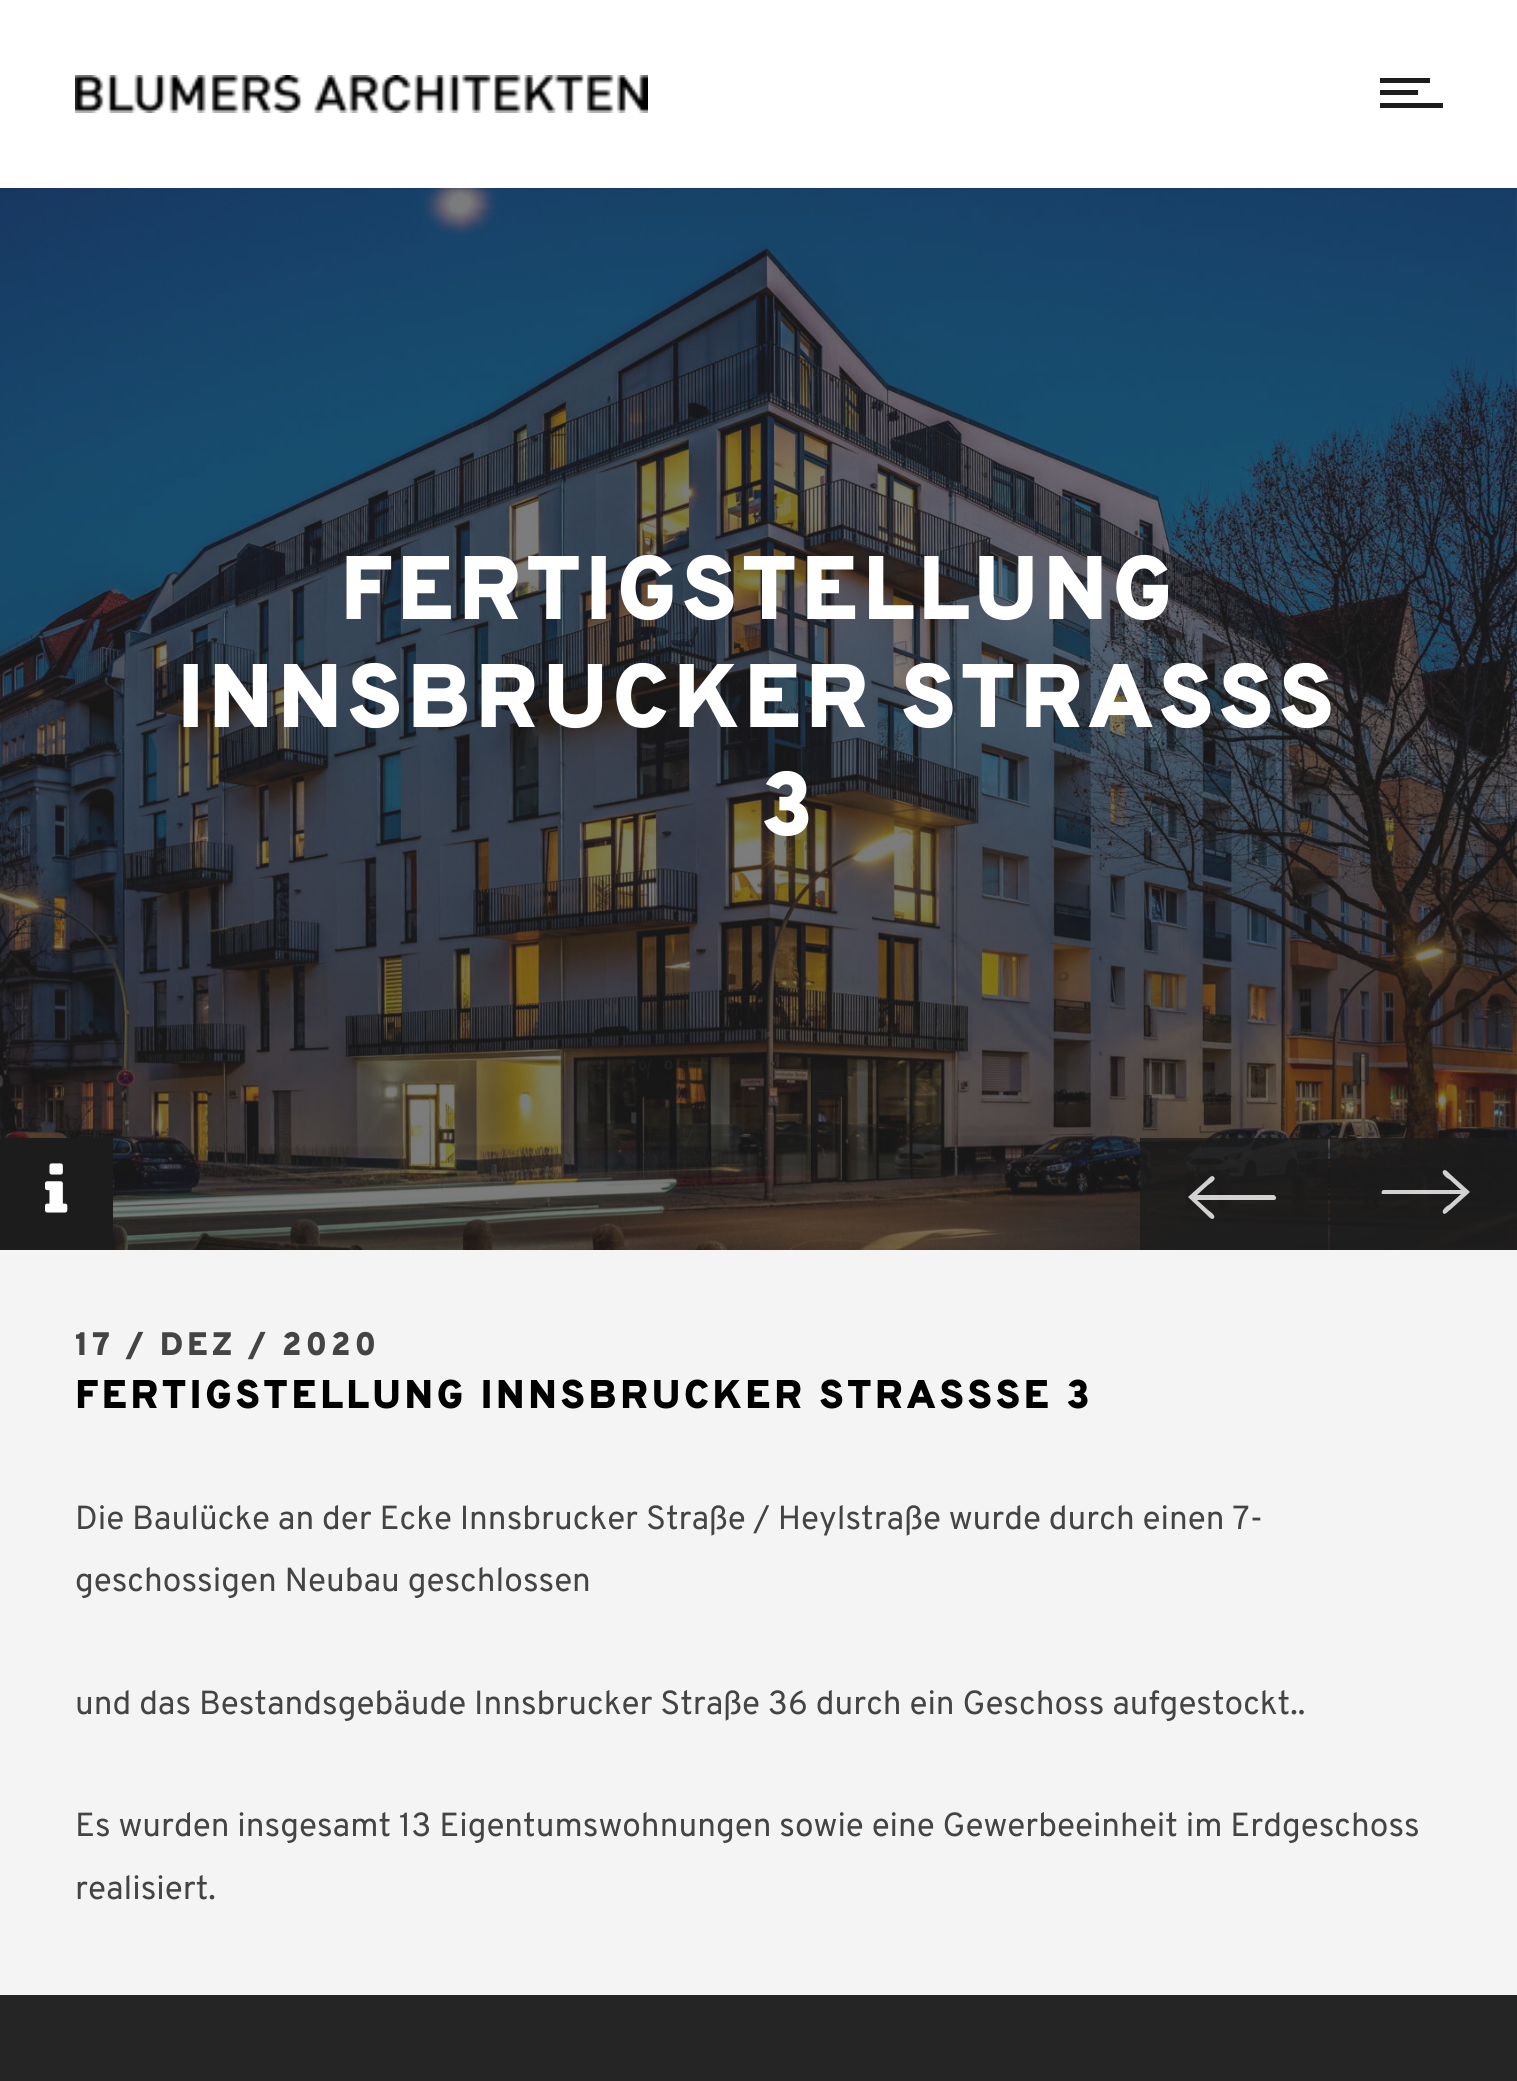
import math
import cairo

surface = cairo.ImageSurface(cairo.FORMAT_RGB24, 1517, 2081)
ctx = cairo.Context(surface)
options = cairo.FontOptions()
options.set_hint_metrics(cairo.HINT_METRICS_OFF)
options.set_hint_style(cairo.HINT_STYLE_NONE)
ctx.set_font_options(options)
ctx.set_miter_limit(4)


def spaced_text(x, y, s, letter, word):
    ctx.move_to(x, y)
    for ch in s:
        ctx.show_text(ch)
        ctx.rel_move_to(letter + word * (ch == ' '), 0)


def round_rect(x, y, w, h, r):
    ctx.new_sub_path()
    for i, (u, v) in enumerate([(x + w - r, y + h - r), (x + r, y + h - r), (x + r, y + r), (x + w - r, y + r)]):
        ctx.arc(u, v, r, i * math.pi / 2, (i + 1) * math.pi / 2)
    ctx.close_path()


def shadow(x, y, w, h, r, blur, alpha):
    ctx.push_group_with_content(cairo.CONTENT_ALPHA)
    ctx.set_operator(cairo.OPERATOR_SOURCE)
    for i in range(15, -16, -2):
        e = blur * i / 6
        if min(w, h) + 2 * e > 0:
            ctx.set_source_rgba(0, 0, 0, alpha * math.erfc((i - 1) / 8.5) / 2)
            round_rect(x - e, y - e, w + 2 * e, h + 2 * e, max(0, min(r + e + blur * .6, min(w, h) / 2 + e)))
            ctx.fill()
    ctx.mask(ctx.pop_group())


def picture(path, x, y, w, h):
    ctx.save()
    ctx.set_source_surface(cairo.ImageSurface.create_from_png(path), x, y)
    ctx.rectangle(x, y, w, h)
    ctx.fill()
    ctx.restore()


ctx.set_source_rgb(0.957, 0.957, 0.957)
ctx.paint()
picture("img2.png", 0, 188, 1517, 1062)
ctx.set_source_rgb(0.098, 0.133, 0.31)
shadow(0, 3, 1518, 187, 0, 1, 0.15)
ctx.set_source_rgb(1, 1, 1)
ctx.rectangle(0, 0, 1517, 188)
ctx.fill()
picture("img1.png", 75, 75, 573, 38)
ctx.set_source_rgb(0.11, 0.11, 0.11)
ctx.rectangle(1380, 90, 38, 5)
ctx.fill()
ctx.rectangle(1380, 78, 50, 5)
ctx.fill()
ctx.rectangle(1380, 103, 63, 5)
ctx.fill()
ctx.select_font_face("Overpass Black")
ctx.set_font_size(90)
ctx.set_source_rgb(1, 1, 1)
spaced_text(340, 619, "FERTIGSTELLUNG", 4, 0)
spaced_text(177, 727, "INNSBRUCKER STRASSS", 4, 0)
spaced_text(760, 835, "3", 4, 0)
ctx.set_source_rgba(0.11, 0.11, 0.11, 0.8)
ctx.rectangle(1140, 1138, 188, 112)
ctx.fill()
ctx.set_source_rgba(1, 1, 1, 0.8)
ctx.new_path()
ctx.move_to(1274, 1200)
ctx.line_to(1197, 1200)
ctx.line_to(1208, 1210)
ctx.curve_to(1209, 1211, 1216, 1215, 1214, 1218)
ctx.curve_to(1212, 1221, 1208, 1216, 1207, 1215)
ctx.line_to(1188, 1197)
ctx.line_to(1207, 1180)
ctx.curve_to(1208, 1179, 1212, 1174, 1214, 1177)
ctx.curve_to(1217, 1180, 1209, 1184, 1208, 1185)
ctx.line_to(1197, 1195)
ctx.line_to(1274, 1195)
ctx.line_to(1275, 1196)
ctx.curve_to(1277, 1197, 1276, 1200, 1274, 1200)
ctx.close_path()
ctx.fill()
ctx.set_source_rgba(0.11, 0.11, 0.11, 0.8)
ctx.rectangle(1330, 1138, 187, 112)
ctx.fill()
ctx.set_source_rgba(1, 1, 1, 0.8)
ctx.new_path()
ctx.move_to(1384, 1190)
ctx.line_to(1461, 1190)
ctx.line_to(1449, 1179)
ctx.curve_to(1448, 1179, 1441, 1174, 1443, 1171)
ctx.curve_to(1445, 1168, 1449, 1173, 1450, 1174)
ctx.line_to(1470, 1192)
ctx.line_to(1450, 1210)
ctx.curve_to(1449, 1210, 1445, 1216, 1443, 1213)
ctx.curve_to(1441, 1210, 1448, 1205, 1449, 1205)
ctx.line_to(1461, 1194)
ctx.line_to(1383, 1194)
ctx.line_to(1382, 1194)
ctx.curve_to(1381, 1192, 1382, 1190, 1384, 1190)
ctx.close_path()
ctx.fill()
ctx.set_source_rgb(0.11, 0.11, 0.11)
ctx.rectangle(0, 1138, 113, 112)
ctx.fill()
picture("img3.png", 45, 1163, 23, 50)
ctx.set_font_size(32.5)
ctx.set_source_rgb(0.267, 0.267, 0.267)
spaced_text(75, 1355, "17 / DEZ / 2020", 3.75, 0)
ctx.set_font_size(40)
ctx.set_source_rgb(0, 0, 0)
spaced_text(75, 1408, "FERTIGSTELLUNG INNSBRUCKER STRASSSE 3", 3.2, 0)
ctx.select_font_face("Overpass")
ctx.set_font_size(33.35)
ctx.set_source_rgb(0.267, 0.267, 0.267)
ctx.move_to(75, 1529)
ctx.show_text("Die Baulücke an der Ecke Innsbrucker Straße / Heylstraße wurde durch einen 7-")
ctx.move_to(75, 1591)
ctx.show_text("geschossigen Neubau geschlossen")
ctx.move_to(75, 1714)
ctx.show_text("und das Bestandsgebäude Innsbrucker Straße 36 durch ein Geschoss aufgestockt..")
ctx.move_to(75, 1836)
ctx.show_text("Es wurden insgesamt 13 Eigentumswohnungen sowie eine Gewerbeeinheit im Erdgeschoss")
ctx.move_to(75, 1899)
ctx.show_text("realisiert.")
ctx.set_source_rgb(0.145, 0.145, 0.145)
ctx.rectangle(0, 1995, 1517, 86)
ctx.fill()
surface.write_to_png("page.png")
